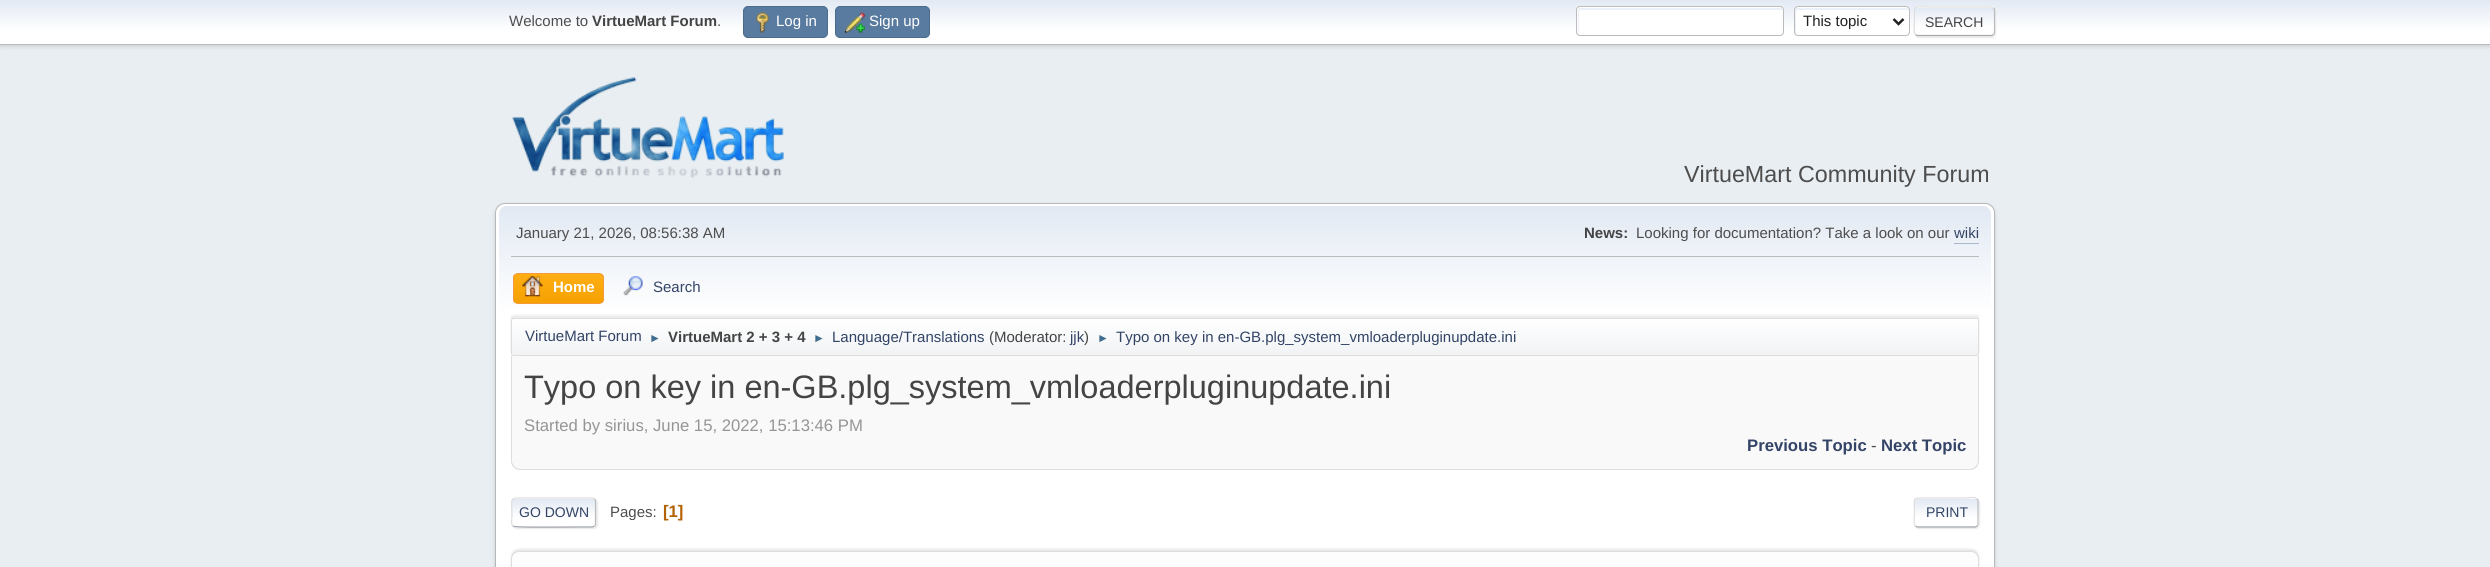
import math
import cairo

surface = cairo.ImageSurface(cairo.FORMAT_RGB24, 2490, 567)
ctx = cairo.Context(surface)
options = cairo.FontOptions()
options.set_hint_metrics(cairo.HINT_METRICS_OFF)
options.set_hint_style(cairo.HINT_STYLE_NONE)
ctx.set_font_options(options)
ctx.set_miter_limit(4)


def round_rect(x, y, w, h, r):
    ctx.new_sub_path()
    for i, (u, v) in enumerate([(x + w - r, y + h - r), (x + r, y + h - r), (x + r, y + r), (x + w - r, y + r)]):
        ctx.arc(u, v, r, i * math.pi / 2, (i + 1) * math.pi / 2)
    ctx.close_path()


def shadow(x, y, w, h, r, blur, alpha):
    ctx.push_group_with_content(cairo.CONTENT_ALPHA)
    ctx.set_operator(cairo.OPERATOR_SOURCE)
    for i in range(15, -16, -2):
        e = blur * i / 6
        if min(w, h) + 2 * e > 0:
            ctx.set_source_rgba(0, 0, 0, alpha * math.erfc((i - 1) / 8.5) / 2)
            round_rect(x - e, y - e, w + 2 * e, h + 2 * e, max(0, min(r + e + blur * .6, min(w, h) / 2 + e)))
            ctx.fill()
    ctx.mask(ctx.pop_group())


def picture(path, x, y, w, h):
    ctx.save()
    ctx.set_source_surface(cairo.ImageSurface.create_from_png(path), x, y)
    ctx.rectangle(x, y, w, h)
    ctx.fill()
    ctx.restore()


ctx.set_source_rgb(0.914, 0.933, 0.949)
ctx.paint()
ctx.set_source_rgb(0, 0, 0)
shadow(0, 1, 2490, 45, 0, 2.5, 0.16)
gradient = cairo.LinearGradient(1245, 0, 1245, 44)
gradient.add_color_stop_rgba(0, 0.886, 0.914, 0.953, 1)
gradient.add_color_stop_rgba(0.7, 1, 1, 1, 1)
ctx.set_source(gradient)
ctx.rectangle(0, 0, 2490, 44)
ctx.fill()
ctx.set_source_rgb(0.733, 0.733, 0.733)
ctx.rectangle(0, 44, 2490, 1)
ctx.fill()
ctx.select_font_face("Liberation Sans")
ctx.set_font_size(15)
ctx.set_source_rgb(0.302, 0.302, 0.302)
ctx.move_to(509, 26)
ctx.show_text("Welcome to")
ctx.select_font_face("Liberation Sans", cairo.FONT_SLANT_NORMAL, cairo.FONT_WEIGHT_BOLD)
ctx.set_source_rgb(0.267, 0.267, 0.267)
ctx.move_to(592, 26)
ctx.show_text("VirtueMart Forum")
ctx.select_font_face("Liberation Sans")
ctx.set_source_rgb(0.302, 0.302, 0.302)
ctx.move_to(717, 26)
ctx.show_text(".")
ctx.set_source_rgb(0.349, 0.482, 0.624)
round_rect(743.5, 6.5, 84, 31, 4.5)
ctx.fill_preserve()
ctx.set_source_rgb(0.29, 0.42, 0.549)
ctx.set_line_width(1)
ctx.stroke()
picture("img1.png", 756, 12, 13, 21)
ctx.set_source_rgb(1, 1, 1)
ctx.move_to(776, 26)
ctx.show_text("Log in")
ctx.set_source_rgb(0.349, 0.482, 0.624)
round_rect(835.5, 6.5, 94, 31, 4.5)
ctx.fill_preserve()
ctx.set_source_rgb(0.29, 0.42, 0.549)
ctx.stroke()
picture("img2.png", 845, 12, 20, 21)
ctx.set_source_rgb(1, 1, 1)
ctx.move_to(869, 26)
ctx.show_text("Sign up")
round_rect(1576, 6, 208, 30, 4)
ctx.fill()
ctx.set_source_rgb(0.925, 0.945, 0.973)
ctx.new_path()
ctx.move_to(1581, 10)
ctx.line_to(1781, 10)
ctx.line_to(1783, 10)
ctx.curve_to(1783, 9, 1782, 8, 1780, 8)
ctx.line_to(1580, 8)
ctx.curve_to(1579, 8, 1578, 9, 1578, 10)
ctx.line_to(1578, 32)
ctx.curve_to(1578, 33, 1578, 34, 1579, 35)
ctx.line_to(1579, 12)
ctx.curve_to(1579, 11, 1580, 10, 1581, 10)
ctx.close_path()
ctx.fill()
round_rect(1576.5, 6.5, 207, 29, 3.5)
ctx.set_source_rgb(0.733, 0.733, 0.733)
ctx.stroke()
ctx.set_source_rgb(1, 1, 1)
round_rect(1794, 6, 116, 30, 4)
ctx.fill()
ctx.set_source_rgb(0.925, 0.945, 0.973)
ctx.new_path()
ctx.move_to(1799, 10)
ctx.line_to(1909, 10)
ctx.curve_to(1909, 9, 1908, 8, 1906, 8)
ctx.line_to(1798, 8)
ctx.curve_to(1796, 8, 1795, 9, 1795, 10)
ctx.line_to(1795, 32)
ctx.curve_to(1795, 33, 1795, 34, 1796, 35)
ctx.line_to(1796, 12)
ctx.curve_to(1796, 11, 1797, 10, 1799, 10)
ctx.close_path()
ctx.fill()
round_rect(1794.5, 6.5, 115, 29, 3.5)
ctx.set_source_rgb(0.733, 0.733, 0.733)
ctx.stroke()
ctx.new_path()
ctx.move_to(1893.5, 19)
ctx.line_to(1898.5, 24)
ctx.line_to(1903.5, 19)
ctx.set_source_rgb(0.133, 0.133, 0.133)
ctx.set_line_width(2.5)
ctx.stroke()
ctx.move_to(1803, 26)
ctx.show_text("This topic")
ctx.set_source_rgb(0.867, 0.867, 0.867)
shadow(1915, 8, 81, 30, 4, 0.5, 0.57)
ctx.save()
round_rect(1914, 6, 81, 30, 4)
ctx.clip()
gradient = cairo.LinearGradient(1954, -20, 1954, 7.5)
gradient.add_color_stop_rgba(0, 0.886, 0.914, 0.953, 1)
gradient.add_color_stop_rgba(0.7, 1, 1, 1, 1)
ctx.set_source(gradient)
ctx.rectangle(1914, 6, 81, 2)
ctx.fill()
gradient = cairo.LinearGradient(1954, 7.5, 1954, 35)
gradient.add_color_stop_rgba(0, 0.886, 0.914, 0.953, 1)
gradient.add_color_stop_rgba(0.7, 1, 1, 1, 1)
ctx.set_source(gradient)
ctx.rectangle(1914, 8, 81, 27)
ctx.fill()
ctx.restore()
ctx.new_path()
ctx.move_to(1993.5, 8)
ctx.curve_to(1994, 8.5, 1994.5, 9, 1994.5, 10)
ctx.line_to(1994.5, 32.5)
ctx.curve_to(1994.5, 33.5, 1994, 34, 1993.5, 34.5)
ctx.set_source_rgb(0.733, 0.733, 0.733)
ctx.set_line_width(1.2)
ctx.stroke()
ctx.new_path()
ctx.move_to(1993.5, 34.5)
ctx.line_to(1991.5, 35.5)
ctx.line_to(1917, 35.5)
ctx.line_to(1915.5, 34.5)
ctx.set_source_rgb(0.667, 0.667, 0.667)
ctx.stroke()
ctx.new_path()
ctx.move_to(1915.5, 34.5)
ctx.curve_to(1913, 32.5, 1914.5, 24, 1914.5, 21)
ctx.curve_to(1914.5, 4, 1912, 7, 1930, 7)
ctx.line_to(1991, 7)
ctx.line_to(1993.5, 8)
ctx.set_source_rgb(0.867, 0.867, 0.867)
ctx.stroke()
ctx.set_font_size(14)
ctx.set_source_rgb(0.267, 0.267, 0.267)
ctx.move_to(1925, 27)
ctx.show_text("SEARCH")
picture("img3.png", 512, 77, 272, 101)
ctx.set_font_size(23.3)
ctx.set_source_rgb(0.302, 0.302, 0.302)
ctx.move_to(1684, 182)
ctx.show_text("VirtueMart Community Forum")
ctx.set_source_rgb(0, 0, 0)
shadow(495, 205, 1500, 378, 10, 2, 0.14)
ctx.set_source_rgb(1, 1, 1)
round_rect(495.5, 203.5, 1499, 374, 9.5)
ctx.fill_preserve()
ctx.set_source_rgb(0.722, 0.722, 0.722)
ctx.set_line_width(1)
ctx.stroke()
gradient = cairo.LinearGradient(1245, 206, 1245, 359)
gradient.add_color_stop_rgba(0, 0.886, 0.914, 0.953, 1)
gradient.add_color_stop_rgba(0.7, 1, 1, 1, 1)
ctx.set_source(gradient)
ctx.new_path()
ctx.move_to(507, 206)
ctx.line_to(1983, 206)
ctx.curve_to(1987.5, 206, 1991, 209.5, 1991, 214)
ctx.line_to(1991, 359)
ctx.line_to(499, 359)
ctx.line_to(499, 214)
ctx.curve_to(499, 209.5, 502.5, 206, 507, 206)
ctx.close_path()
ctx.fill()
ctx.set_source_rgb(0.733, 0.733, 0.733)
ctx.rectangle(511, 256, 1468, 1)
ctx.fill()
ctx.set_font_size(15)
ctx.set_source_rgb(0.302, 0.302, 0.302)
ctx.move_to(516, 238)
ctx.show_text("January 21, 2026, 08:56:38 AM")
ctx.select_font_face("Liberation Sans", cairo.FONT_SLANT_NORMAL, cairo.FONT_WEIGHT_BOLD)
ctx.set_source_rgb(0.267, 0.267, 0.267)
ctx.move_to(1584, 238)
ctx.show_text("News:")
ctx.select_font_face("Liberation Sans")
ctx.set_source_rgb(0.302, 0.302, 0.302)
ctx.move_to(1636, 238)
ctx.show_text("Looking for documentation? Take a look on our")
ctx.set_source_rgb(0.2, 0.267, 0.4)
ctx.move_to(1954, 238)
ctx.show_text("wiki")
ctx.set_source_rgb(0.659, 0.714, 0.812)
ctx.rectangle(1954, 243, 25, 1)
ctx.fill()
ctx.save()
round_rect(513, 273, 91, 31, 5)
ctx.clip()
gradient = cairo.LinearGradient(558, 274, 558, 303)
gradient.add_color_stop_rgba(0, 1, 0.682, 0.078, 1)
gradient.add_color_stop_rgba(1, 0.961, 0.631, 0, 1)
ctx.set_source(gradient)
ctx.rectangle(513, 274, 91, 29)
ctx.fill()
ctx.restore()
round_rect(513.5, 273.5, 90, 30, 4.5)
ctx.set_source_rgb(0.957, 0.604, 0.227)
ctx.stroke()
picture("img4.png", 522, 276, 21, 21)
ctx.select_font_face("Liberation Sans", cairo.FONT_SLANT_NORMAL, cairo.FONT_WEIGHT_BOLD)
ctx.set_source_rgb(1, 1, 1)
ctx.move_to(553, 292)
ctx.show_text("Home")
picture("img5.png", 623, 276, 20, 20)
ctx.select_font_face("Liberation Sans")
ctx.set_source_rgb(0.2, 0.267, 0.4)
ctx.move_to(653, 292)
ctx.show_text("Search")
ctx.set_source_rgb(0, 0, 0)
shadow(511, 315, 1468, 39, 2.5, 1, 0.08)
ctx.save()
round_rect(511, 318, 1468, 38, 2.5)
ctx.clip()
gradient = cairo.LinearGradient(1245, 319, 1245, 355)
gradient.add_color_stop_rgba(0, 1, 1, 1, 1)
gradient.add_color_stop_rgba(0.95, 0.945, 0.953, 0.961, 1)
ctx.set_source(gradient)
ctx.rectangle(511, 319, 1468, 36)
ctx.fill()
ctx.restore()
round_rect(511.5, 318.5, 1467, 37, 2)
ctx.set_source_rgb(0.867, 0.867, 0.867)
ctx.stroke()
ctx.set_source_rgb(0.2, 0.267, 0.4)
ctx.move_to(525, 341)
ctx.show_text("VirtueMart Forum")
ctx.set_font_size(12)
ctx.set_source_rgb(0.247, 0.42, 0.549)
ctx.move_to(649, 342)
ctx.show_text("►")
ctx.select_font_face("Liberation Sans", cairo.FONT_SLANT_NORMAL, cairo.FONT_WEIGHT_BOLD)
ctx.set_font_size(15)
ctx.set_source_rgb(0.267, 0.267, 0.267)
ctx.move_to(668, 342)
ctx.show_text("VirtueMart 2 + 3 + 4")
ctx.select_font_face("Liberation Sans")
ctx.set_font_size(12)
ctx.set_source_rgb(0.247, 0.42, 0.549)
ctx.move_to(813, 342)
ctx.show_text("►")
ctx.set_font_size(15)
ctx.set_source_rgb(0.2, 0.267, 0.4)
ctx.move_to(832, 342)
ctx.show_text("Language/Translations")
ctx.set_source_rgb(0.267, 0.267, 0.267)
ctx.move_to(989, 342)
ctx.show_text("(Moderator:")
ctx.set_source_rgb(0.2, 0.267, 0.4)
ctx.move_to(1070, 342)
ctx.show_text("jjk")
ctx.set_source_rgb(0.267, 0.267, 0.267)
ctx.move_to(1084, 342)
ctx.show_text(")")
ctx.set_font_size(12)
ctx.set_source_rgb(0.247, 0.42, 0.549)
ctx.move_to(1097, 342)
ctx.show_text("►")
ctx.set_font_size(15)
ctx.set_source_rgb(0.2, 0.267, 0.4)
ctx.move_to(1116, 342)
ctx.show_text("Typo on key in en-GB.plg_system_vmloaderpluginupdate.ini")
ctx.set_source_rgb(0.973, 0.973, 0.973)
ctx.new_path()
ctx.move_to(511, 356)
ctx.line_to(1979, 356)
ctx.line_to(1979, 461)
ctx.curve_to(1979, 466, 1975, 470, 1970, 470)
ctx.line_to(520, 470)
ctx.curve_to(515, 470, 511, 466, 511, 461)
ctx.close_path()
ctx.fill()
ctx.set_source_rgb(0.867, 0.867, 0.867)
ctx.set_fill_rule(cairo.FILL_RULE_EVEN_ODD)
ctx.new_path()
ctx.move_to(511, 356)
ctx.line_to(1979, 356)
ctx.line_to(1979, 461)
ctx.curve_to(1979, 466, 1975, 470, 1970, 470)
ctx.line_to(520, 470)
ctx.curve_to(515, 470, 511, 466, 511, 461)
ctx.close_path()
ctx.move_to(512, 356)
ctx.line_to(1978, 356)
ctx.line_to(1978, 461)
ctx.curve_to(1978, 465, 1974, 469, 1970, 469)
ctx.line_to(520, 469)
ctx.curve_to(516, 469, 512, 465, 512, 461)
ctx.close_path()
ctx.fill()
ctx.set_font_size(32.5)
ctx.set_source_rgb(0.267, 0.267, 0.267)
ctx.move_to(524, 398)
ctx.show_text("Typo on key in en-GB.plg_system_vmloaderpluginupdate.ini")
ctx.set_font_size(16.7)
ctx.set_source_rgb(0.584, 0.584, 0.584)
ctx.move_to(524, 431)
ctx.show_text("Started by sirius, June 15, 2022, 15:13:46 PM")
ctx.select_font_face("Liberation Sans", cairo.FONT_SLANT_NORMAL, cairo.FONT_WEIGHT_BOLD)
ctx.set_source_rgb(0.2, 0.267, 0.4)
ctx.move_to(1747, 451)
ctx.show_text("Previous Topic")
ctx.select_font_face("Liberation Sans")
ctx.set_source_rgb(0.302, 0.302, 0.302)
ctx.move_to(1871, 451)
ctx.show_text("-")
ctx.select_font_face("Liberation Sans", cairo.FONT_SLANT_NORMAL, cairo.FONT_WEIGHT_BOLD)
ctx.set_source_rgb(0.2, 0.267, 0.4)
ctx.move_to(1881, 451)
ctx.show_text("Next Topic")
ctx.set_source_rgb(0.867, 0.867, 0.867)
shadow(513, 499, 85, 30, 4, 0.5, 0.57)
ctx.set_source_rgb(1, 1, 1)
round_rect(511, 498, 85, 30, 4)
ctx.fill()
ctx.save()
ctx.set_fill_rule(cairo.FILL_RULE_WINDING)
round_rect(511, 498, 85, 30, 4)
ctx.clip()
gradient = cairo.LinearGradient(554, 499, 554, 526)
gradient.add_color_stop_rgba(0, 0.886, 0.914, 0.953, 1)
gradient.add_color_stop_rgba(0.7, 1, 1, 1, 1)
ctx.set_source(gradient)
ctx.rectangle(511, 499, 85, 27)
ctx.fill()
gradient = cairo.LinearGradient(554, 526, 554, 554)
gradient.add_color_stop_rgba(0, 0.886, 0.914, 0.953, 1)
gradient.add_color_stop_rgba(0.7, 1, 1, 1, 1)
ctx.set_source(gradient)
ctx.rectangle(511, 526, 85, 2)
ctx.fill()
ctx.restore()
ctx.new_path()
ctx.move_to(594.5, 499)
ctx.curve_to(595.5, 499.5, 595.5, 500.5, 595.5, 501)
ctx.line_to(595.5, 524)
ctx.curve_to(595.5, 524.5, 595.5, 525.5, 594.5, 526)
ctx.set_source_rgb(0.733, 0.733, 0.733)
ctx.set_line_width(1.2)
ctx.stroke()
ctx.new_path()
ctx.move_to(594.5, 526)
ctx.line_to(592.5, 527)
ctx.line_to(579.5, 527)
ctx.curve_to(572, 527, 515, 528, 513, 526)
ctx.set_source_rgb(0.667, 0.667, 0.667)
ctx.stroke()
ctx.new_path()
ctx.move_to(513, 526)
ctx.curve_to(510.5, 523.5, 512, 519, 512, 516)
ctx.curve_to(512, 496, 508, 498, 528, 498)
ctx.line_to(592.5, 498)
ctx.line_to(594.5, 499)
ctx.set_source_rgb(0.867, 0.867, 0.867)
ctx.stroke()
ctx.select_font_face("Liberation Sans")
ctx.set_font_size(14)
ctx.set_source_rgb(0.2, 0.267, 0.4)
ctx.move_to(519, 517)
ctx.show_text("GO DOWN")
ctx.set_font_size(15)
ctx.set_source_rgb(0.302, 0.302, 0.302)
ctx.move_to(610, 517)
ctx.show_text("Pages:")
ctx.select_font_face("Liberation Sans", cairo.FONT_SLANT_NORMAL, cairo.FONT_WEIGHT_BOLD)
ctx.set_font_size(16.7)
ctx.set_source_rgb(0.706, 0.38, 0)
ctx.move_to(663, 517)
ctx.show_text("[1]")
ctx.set_source_rgb(0.867, 0.867, 0.867)
shadow(1915, 499, 65, 30, 4, 0.5, 0.57)
ctx.set_source_rgb(1, 1, 1)
round_rect(1914, 498, 65, 30, 4)
ctx.fill()
ctx.save()
ctx.set_fill_rule(cairo.FILL_RULE_WINDING)
round_rect(1914, 498, 65, 30, 4)
ctx.clip()
gradient = cairo.LinearGradient(1946, 499, 1946, 526)
gradient.add_color_stop_rgba(0, 0.886, 0.914, 0.953, 1)
gradient.add_color_stop_rgba(0.7, 1, 1, 1, 1)
ctx.set_source(gradient)
ctx.rectangle(1914, 499, 65, 27)
ctx.fill()
gradient = cairo.LinearGradient(1946, 526, 1946, 554)
gradient.add_color_stop_rgba(0, 0.886, 0.914, 0.953, 1)
gradient.add_color_stop_rgba(0.7, 1, 1, 1, 1)
ctx.set_source(gradient)
ctx.rectangle(1914, 526, 65, 2)
ctx.fill()
ctx.restore()
ctx.new_path()
ctx.move_to(1977, 499)
ctx.curve_to(1978, 499.5, 1978, 500.5, 1978, 501)
ctx.line_to(1978, 524)
ctx.curve_to(1978, 524.5, 1978, 525.5, 1977, 526)
ctx.set_source_rgb(0.733, 0.733, 0.733)
ctx.stroke()
ctx.new_path()
ctx.move_to(1977, 526)
ctx.line_to(1975.5, 527)
ctx.line_to(1917, 527)
ctx.line_to(1915.5, 526)
ctx.set_source_rgb(0.667, 0.667, 0.667)
ctx.stroke()
ctx.new_path()
ctx.move_to(1915.5, 526)
ctx.curve_to(1913, 524, 1914.5, 515, 1914.5, 512.5)
ctx.curve_to(1914.5, 496.5, 1911.5, 498, 1927, 498)
ctx.line_to(1965.5, 498)
ctx.curve_to(1969.5, 498, 1974, 496.5, 1977, 499)
ctx.set_source_rgb(0.867, 0.867, 0.867)
ctx.stroke()
ctx.select_font_face("Liberation Sans")
ctx.set_font_size(14)
ctx.set_source_rgb(0.2, 0.267, 0.4)
ctx.move_to(1926, 517)
ctx.show_text("PRINT")
ctx.set_source_rgb(0, 0, 0)
shadow(511, 549, 1468, 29, 8, 1, 0.1)
ctx.set_source_rgb(0.992, 0.992, 0.992)
round_rect(511.5, 551.5, 1467, 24, 7.5)
ctx.fill_preserve()
ctx.set_source_rgb(0.867, 0.867, 0.867)
ctx.set_line_width(1)
ctx.stroke()
surface.write_to_png("page.png")
